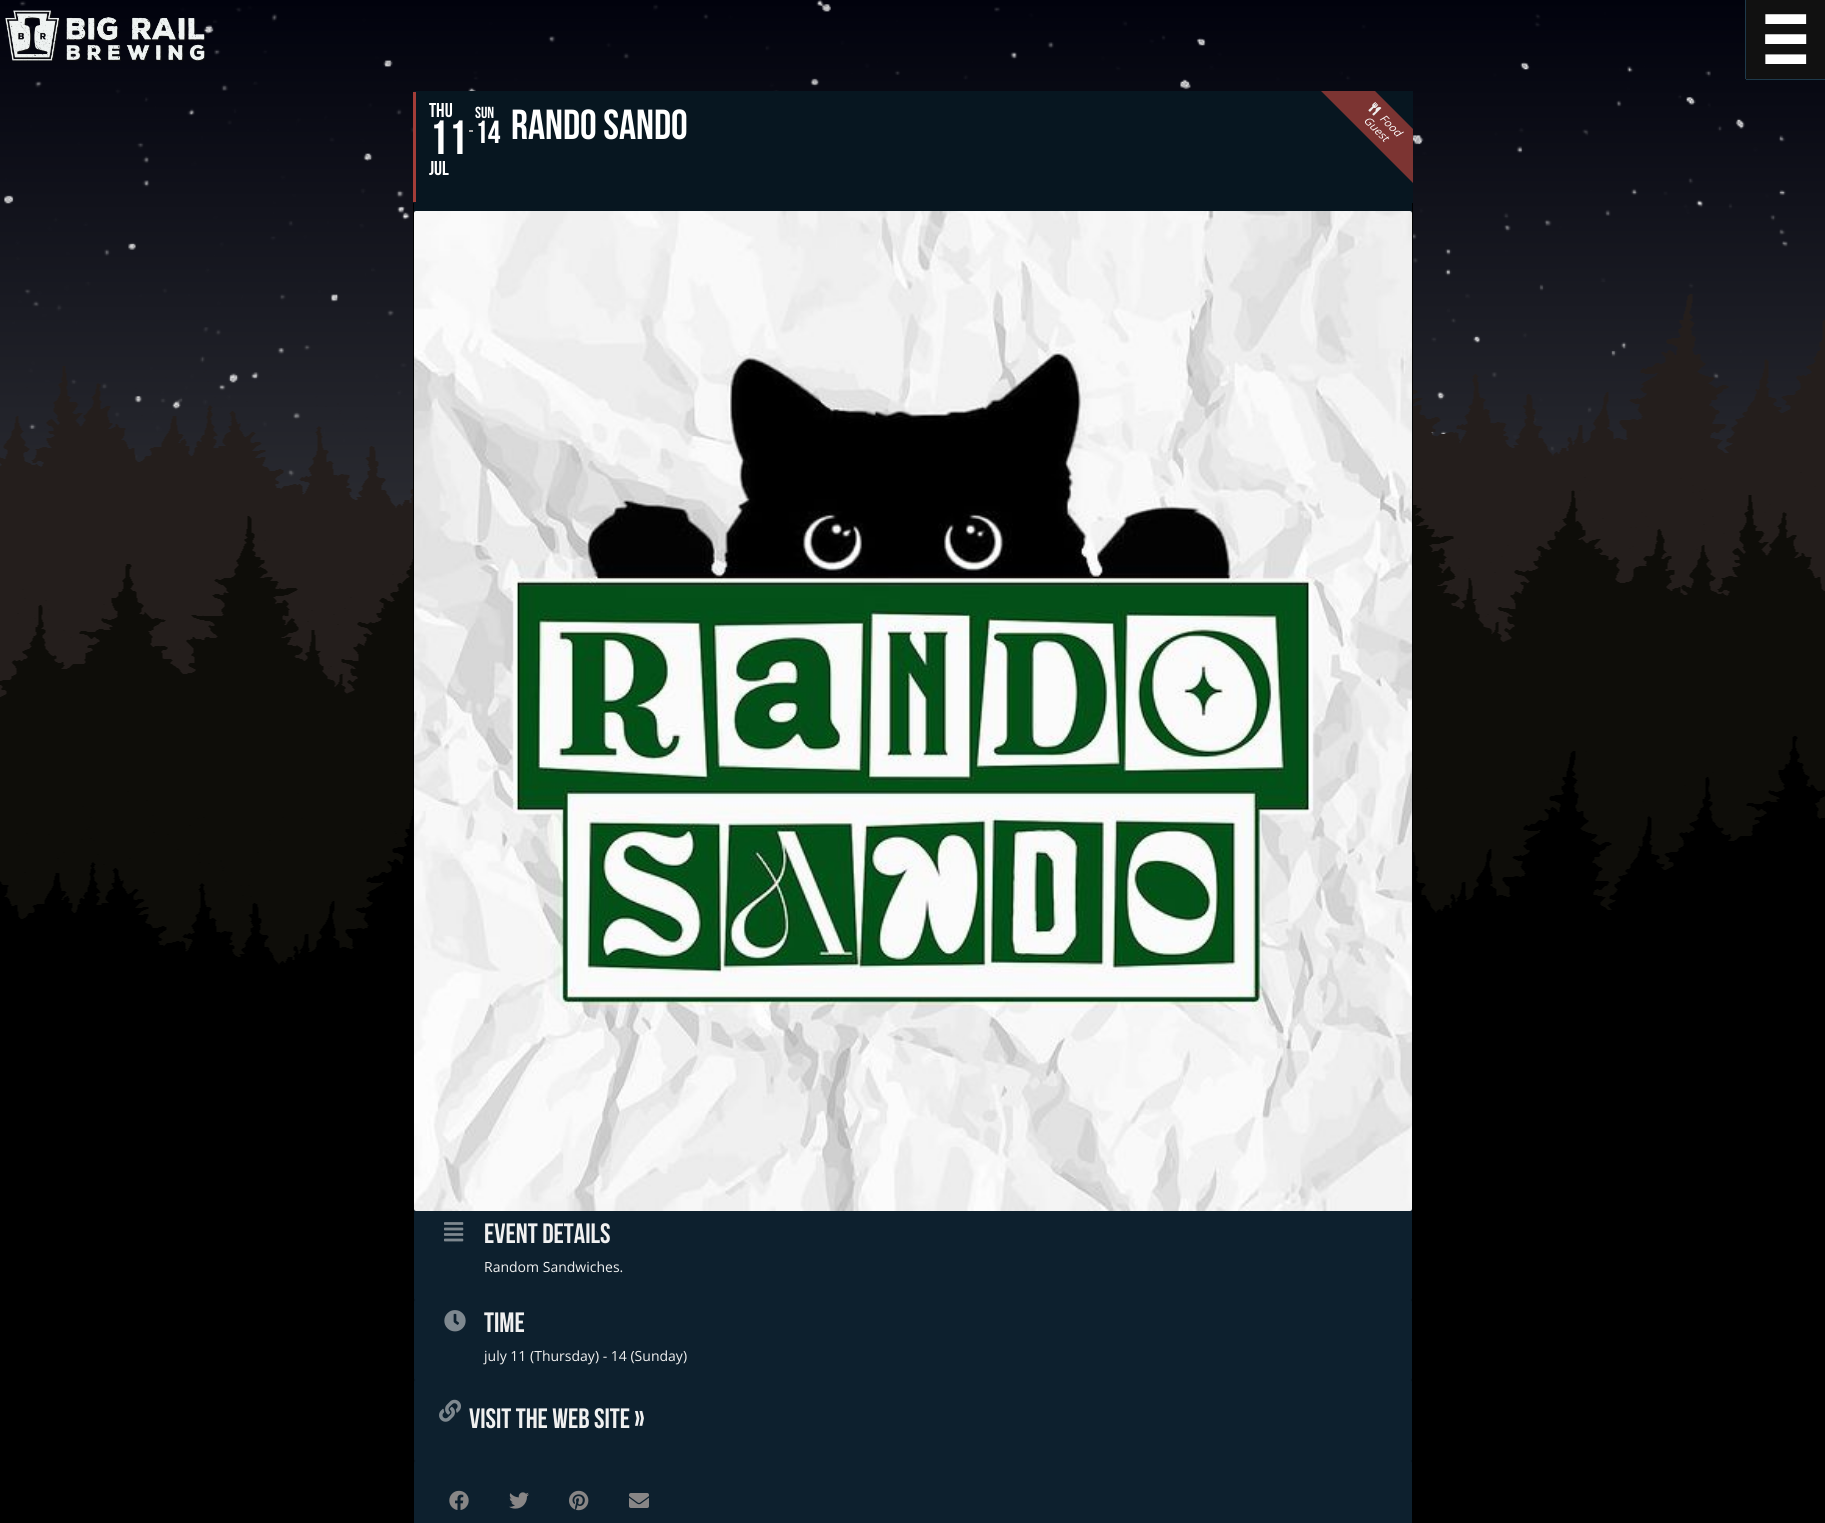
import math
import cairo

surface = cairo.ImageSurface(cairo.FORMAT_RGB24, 1825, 1523)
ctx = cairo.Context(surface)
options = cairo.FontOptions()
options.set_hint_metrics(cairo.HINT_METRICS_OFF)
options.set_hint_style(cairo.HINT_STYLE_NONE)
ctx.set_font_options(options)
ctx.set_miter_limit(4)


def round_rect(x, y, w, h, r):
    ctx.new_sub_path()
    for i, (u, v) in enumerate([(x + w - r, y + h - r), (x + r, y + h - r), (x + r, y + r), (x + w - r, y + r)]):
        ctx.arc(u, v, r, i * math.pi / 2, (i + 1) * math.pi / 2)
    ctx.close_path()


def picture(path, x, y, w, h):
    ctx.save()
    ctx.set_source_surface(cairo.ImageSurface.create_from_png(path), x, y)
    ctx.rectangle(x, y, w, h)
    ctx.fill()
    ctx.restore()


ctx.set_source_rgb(1, 1, 1)
ctx.paint()
gradient = cairo.LinearGradient(912, 0, 913, 1523)
gradient.add_color_stop_rgba(0, 0.004, 0.008, 0.051, 1)
gradient.add_color_stop_rgba(0.6, 0.29, 0.294, 0.302, 1)
ctx.set_source(gradient)
ctx.rectangle(0, 0, 1825, 508)
ctx.fill()
picture("img1.png", 4, 0, 1784, 508)
picture("img2.png", 5, 10, 200, 51)
ctx.set_source_rgb(0.067, 0.067, 0.067)
ctx.new_path()
ctx.move_to(1745, 0)
ctx.line_to(1825, 0)
ctx.line_to(1825, 80)
ctx.line_to(1747, 80)
ctx.curve_to(1746, 80, 1745, 79, 1745, 78)
ctx.close_path()
ctx.fill()
picture("img3.png", 1765, 14, 42, 50)
ctx.set_source_rgb(0.118, 0.227, 0.294)
ctx.rectangle(1746, 79, 79, 1)
ctx.fill()
ctx.rectangle(1745, 0, 1, 79)
ctx.fill()
ctx.set_source_rgb(0.031, 0.086, 0.125)
ctx.new_path()
ctx.move_to(415, 91)
ctx.line_to(1413, 91)
ctx.line_to(1413, 203)
ctx.line_to(415, 203)
ctx.curve_to(414, 203, 413, 202, 413, 201)
ctx.line_to(413, 93)
ctx.curve_to(413, 92, 414, 91, 415, 91)
ctx.close_path()
ctx.fill()
ctx.set_source_rgb(0.639, 0.239, 0.22)
ctx.rectangle(413, 92, 3, 110)
ctx.fill()
ctx.select_font_face("Bebas Neue")
ctx.set_font_size(20)
ctx.set_source_rgb(1, 1, 1)
ctx.move_to(429, 117)
ctx.show_text("THU")
ctx.set_font_size(48)
ctx.move_to(429, 154)
ctx.show_text("11")
ctx.set_font_size(20)
ctx.move_to(429, 175)
ctx.show_text("JUL")
ctx.set_font_size(16)
ctx.move_to(475, 118)
ctx.show_text("SUN")
ctx.set_source_rgb(0.671, 0.671, 0.671)
ctx.rectangle(469, 130, 4, 2)
ctx.fill()
ctx.set_font_size(32)
ctx.set_source_rgb(1, 1, 1)
ctx.move_to(475, 143)
ctx.show_text("14")
ctx.set_font_size(42)
ctx.move_to(511, 139)
ctx.show_text("Rando Sando")
ctx.save()
ctx.rectangle(1283, 91, 130, 130)
ctx.clip()
ctx.set_source_rgb(0.486, 0.204, 0.196)
ctx.new_path()
ctx.move_to(1335, 51)
ctx.line_to(1454, 170)
ctx.line_to(1427, 197)
ctx.line_to(1308, 78)
ctx.close_path()
ctx.fill()
ctx.restore()
picture("img4.png", 1368, 102, 14, 14)
ctx.select_font_face("Open Sans", cairo.FONT_SLANT_ITALIC)
ctx.set_font_size(11)
ctx.save()
ctx.translate(1379, 119)
ctx.rotate(45 * math.pi / 180)
ctx.move_to(0, 0)
ctx.show_text("Food")
ctx.restore()
ctx.save()
ctx.translate(1363, 121)
ctx.rotate(45 * math.pi / 180)
ctx.move_to(0, 0)
ctx.show_text("Guest")
ctx.restore()
picture("img13.png", 0, 284, 1825, 413)
picture("img14.png", 0, 472, 1825, 493)
picture("img15.png", 0, 736, 1825, 467)
ctx.set_source_rgb(0, 0, 0)
ctx.rectangle(0, 1203, 1825, 320)
ctx.fill()
ctx.set_source_rgb(0.031, 0.086, 0.125)
ctx.rectangle(414, 203, 998, 1260)
ctx.fill()
ctx.set_source_rgb(0, 0, 0)
ctx.rectangle(1412, 203, 1, 649)
ctx.fill()
ctx.rectangle(413, 203, 1, 606)
ctx.fill()
picture("img5.png", 414, 211, 998, 1000)
ctx.set_source_rgb(0.051, 0.125, 0.18)
round_rect(414, 1211, 998, 89, 2)
ctx.fill()
picture("img6.png", 444, 1222, 20, 20)
ctx.select_font_face("Bebas Neue")
ctx.set_font_size(28)
ctx.set_source_rgb(0.941, 0.941, 0.941)
ctx.move_to(484, 1243)
ctx.show_text("EVENT DETAILS")
ctx.select_font_face("Open Sans")
ctx.set_font_size(14)
ctx.move_to(484, 1272)
ctx.show_text("Random Sandwiches.")
ctx.set_source_rgb(0.051, 0.125, 0.18)
round_rect(414, 1300, 998, 80, 2)
ctx.fill()
picture("img7.png", 444, 1310, 22, 22)
ctx.select_font_face("Bebas Neue")
ctx.set_font_size(28)
ctx.set_source_rgb(0.941, 0.941, 0.941)
ctx.move_to(484, 1332)
ctx.show_text("TIME")
ctx.select_font_face("Open Sans")
ctx.set_font_size(14)
ctx.move_to(484, 1361)
ctx.show_text("july 11 (Thursday) - 14 (Sunday)")
ctx.set_source_rgb(0.051, 0.125, 0.18)
round_rect(414, 1380, 998, 81, 2)
ctx.fill()
picture("img8.png", 439, 1399, 22, 23)
ctx.select_font_face("Bebas Neue")
ctx.set_font_size(28)
ctx.set_source_rgb(0.941, 0.941, 0.941)
ctx.move_to(469, 1428)
ctx.show_text("VISIT THE WEB SITE »")
ctx.set_source_rgb(0.051, 0.125, 0.18)
round_rect(414, 1461, 998, 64, 2)
ctx.fill()
picture("img9.png", 449, 1490, 20, 20)
picture("img10.png", 509, 1492, 20, 17)
picture("img11.png", 569, 1490, 20, 21)
picture("img12.png", 629, 1493, 20, 15)
surface.write_to_png("page.png")
